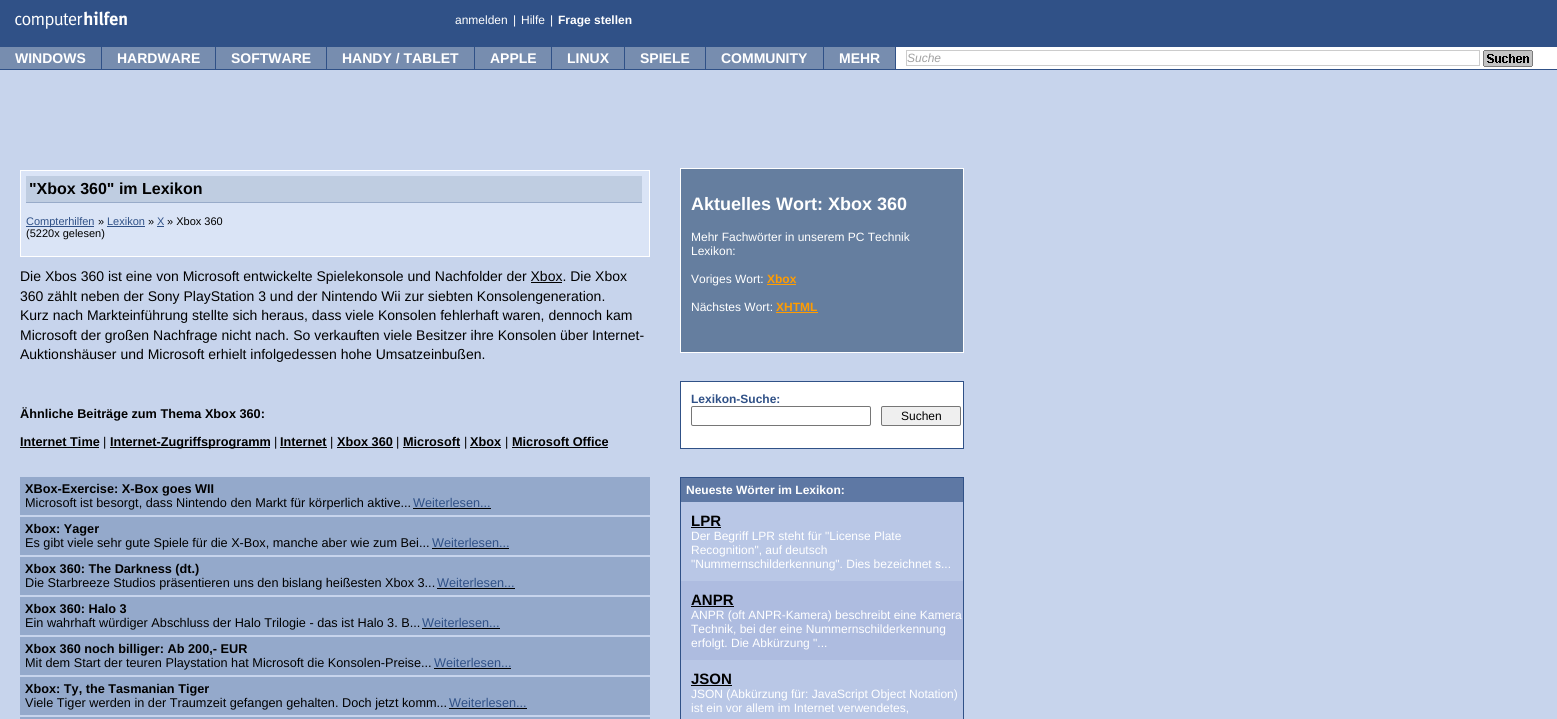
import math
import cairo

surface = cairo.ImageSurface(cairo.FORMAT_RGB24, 1557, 719)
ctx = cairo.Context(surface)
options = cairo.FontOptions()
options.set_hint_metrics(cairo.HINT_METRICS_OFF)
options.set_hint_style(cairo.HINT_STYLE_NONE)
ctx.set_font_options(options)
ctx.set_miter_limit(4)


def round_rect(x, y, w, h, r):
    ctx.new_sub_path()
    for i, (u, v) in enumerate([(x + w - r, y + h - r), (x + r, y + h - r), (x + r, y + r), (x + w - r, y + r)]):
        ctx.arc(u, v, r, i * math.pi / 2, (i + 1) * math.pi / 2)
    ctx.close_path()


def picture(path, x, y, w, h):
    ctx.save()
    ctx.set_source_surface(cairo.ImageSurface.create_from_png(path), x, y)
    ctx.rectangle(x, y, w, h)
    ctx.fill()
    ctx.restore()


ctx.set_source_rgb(0.78, 0.831, 0.925)
ctx.paint()
ctx.set_source_rgb(0.188, 0.318, 0.529)
ctx.rectangle(0, 0, 1557, 47)
ctx.fill()
picture("img1.png", 15, 11, 112, 18)
ctx.select_font_face("Liberation Sans")
ctx.set_font_size(12)
ctx.set_source_rgb(1, 1, 1)
ctx.move_to(455, 24)
ctx.show_text("anmelden")
ctx.move_to(513, 24)
ctx.show_text("|")
ctx.move_to(521, 24)
ctx.show_text("Hilfe")
ctx.move_to(550, 24)
ctx.show_text("|")
ctx.select_font_face("Liberation Sans", cairo.FONT_SLANT_NORMAL, cairo.FONT_WEIGHT_BOLD)
ctx.move_to(558, 24)
ctx.show_text("Frage stellen")
ctx.rectangle(896, 47, 661, 22)
ctx.fill()
ctx.set_source_rgb(0.188, 0.318, 0.529)
ctx.rectangle(0, 69, 1557, 1)
ctx.fill()
ctx.rectangle(101, 47, 795, 22)
ctx.fill()
ctx.set_source_rgb(0.467, 0.553, 0.686)
ctx.rectangle(0, 47, 101, 22)
ctx.fill()
ctx.set_font_size(14)
ctx.set_source_rgb(1, 1, 1)
ctx.move_to(15, 63)
ctx.show_text("WINDOWS")
ctx.set_source_rgb(0.467, 0.553, 0.686)
ctx.rectangle(102, 47, 113, 22)
ctx.fill()
ctx.set_source_rgb(1, 1, 1)
ctx.move_to(117, 63)
ctx.show_text("HARDWARE")
ctx.set_source_rgb(0.467, 0.553, 0.686)
ctx.rectangle(216, 47, 110, 22)
ctx.fill()
ctx.set_source_rgb(1, 1, 1)
ctx.move_to(231, 63)
ctx.show_text("SOFTWARE")
ctx.set_source_rgb(0.467, 0.553, 0.686)
ctx.rectangle(327, 47, 147, 22)
ctx.fill()
ctx.set_source_rgb(1, 1, 1)
ctx.move_to(342, 63)
ctx.show_text("HANDY / TABLET")
ctx.set_source_rgb(0.467, 0.553, 0.686)
ctx.rectangle(475, 47, 76, 22)
ctx.fill()
ctx.set_source_rgb(1, 1, 1)
ctx.move_to(490, 63)
ctx.show_text("APPLE")
ctx.set_source_rgb(0.467, 0.553, 0.686)
ctx.rectangle(552, 47, 72, 22)
ctx.fill()
ctx.set_source_rgb(1, 1, 1)
ctx.move_to(567, 63)
ctx.show_text("LINUX")
ctx.set_source_rgb(0.467, 0.553, 0.686)
ctx.rectangle(625, 47, 80, 22)
ctx.fill()
ctx.set_source_rgb(1, 1, 1)
ctx.move_to(640, 63)
ctx.show_text("SPIELE")
ctx.set_source_rgb(0.467, 0.553, 0.686)
ctx.rectangle(706, 47, 117, 22)
ctx.fill()
ctx.set_source_rgb(1, 1, 1)
ctx.move_to(721, 63)
ctx.show_text("COMMUNITY")
ctx.set_source_rgb(0.467, 0.553, 0.686)
ctx.rectangle(824, 47, 71, 22)
ctx.fill()
ctx.set_source_rgb(1, 1, 1)
ctx.move_to(839, 63)
ctx.show_text("MEHR")
ctx.rectangle(906.5, 50.5, 573, 15)
ctx.set_source_rgb(0.8, 0.8, 0.8)
ctx.set_line_width(1)
ctx.stroke()
ctx.select_font_face("Liberation Sans", cairo.FONT_SLANT_ITALIC)
ctx.set_font_size(12)
ctx.set_source_rgb(0.631, 0.631, 0.631)
ctx.move_to(907, 62)
ctx.show_text("Suche")
picture("img2.png", 1483, 50, 50, 17)
ctx.set_source_rgb(0.855, 0.894, 0.961)
ctx.rectangle(20.5, 170.5, 629, 86)
ctx.fill_preserve()
ctx.set_source_rgb(1, 1, 1)
ctx.stroke()
ctx.set_source_rgb(0.749, 0.804, 0.882)
ctx.rectangle(26, 176, 616, 26)
ctx.fill()
ctx.set_source_rgb(0.596, 0.671, 0.788)
ctx.rectangle(26, 202, 616, 1)
ctx.fill()
ctx.select_font_face("Liberation Sans", cairo.FONT_SLANT_NORMAL, cairo.FONT_WEIGHT_BOLD)
ctx.set_font_size(16)
ctx.set_source_rgb(0, 0, 0)
ctx.move_to(29, 194)
ctx.show_text("\"Xbox 360\" im Lexikon")
ctx.set_source_rgb(0.188, 0.318, 0.529)
ctx.rectangle(26, 226, 68, 1)
ctx.fill()
ctx.select_font_face("Liberation Sans")
ctx.set_font_size(11)
ctx.move_to(26, 225)
ctx.show_text("Compterhilfen")
ctx.set_source_rgb(0, 0, 0)
ctx.move_to(98, 225)
ctx.show_text("»")
ctx.set_source_rgb(0.188, 0.318, 0.529)
ctx.move_to(107, 225)
ctx.show_text("Lexikon")
ctx.rectangle(107, 226, 38, 1)
ctx.fill()
ctx.set_source_rgb(0, 0, 0)
ctx.move_to(148, 225)
ctx.show_text("»")
ctx.set_source_rgb(0.188, 0.318, 0.529)
ctx.move_to(157, 225)
ctx.show_text("X")
ctx.rectangle(157, 226, 7, 1)
ctx.fill()
ctx.set_source_rgb(0, 0, 0)
ctx.move_to(167, 225)
ctx.show_text("» Xbox 360")
ctx.move_to(26, 237)
ctx.show_text("(5220x gelesen)")
ctx.set_font_size(14)
ctx.move_to(20, 281)
ctx.show_text("Die Xbos 360 ist eine von Microsoft entwickelte Spielekonsole und Nachfolder der Xbox. Die Xbox")
ctx.rectangle(531, 282, 31, 1)
ctx.fill()
ctx.move_to(20, 301)
ctx.show_text("360 zählt neben der Sony PlayStation 3 und der Nintendo Wii zur siebten Konsolengeneration.")
ctx.move_to(20, 320)
ctx.show_text("Kurz nach Markteinführung stellte sich heraus, dass viele Konsolen fehlerhaft waren, dennoch kam")
ctx.move_to(20, 340)
ctx.show_text("Microsoft der großen Nachfrage nicht nach. So verkauften viele Besitzer ihre Konsolen über Internet-")
ctx.move_to(20, 359)
ctx.show_text("Auktionshäuser und Microsoft erhielt infolgedessen hohe Umsatzeinbußen.")
ctx.select_font_face("Liberation Sans", cairo.FONT_SLANT_NORMAL, cairo.FONT_WEIGHT_BOLD)
ctx.set_font_size(12.7)
ctx.move_to(20, 418)
ctx.show_text("Ähnliche Beiträge zum Thema Xbox 360:")
ctx.move_to(20, 446)
ctx.show_text("Internet Time")
ctx.rectangle(20, 447, 79, 1)
ctx.fill()
ctx.select_font_face("Liberation Sans")
ctx.move_to(103, 446)
ctx.show_text("|")
ctx.rectangle(110, 447, 160, 1)
ctx.fill()
ctx.select_font_face("Liberation Sans", cairo.FONT_SLANT_NORMAL, cairo.FONT_WEIGHT_BOLD)
ctx.move_to(110, 446)
ctx.show_text("Internet-Zugriffsprogramm")
ctx.select_font_face("Liberation Sans")
ctx.move_to(274, 446)
ctx.show_text("|")
ctx.select_font_face("Liberation Sans", cairo.FONT_SLANT_NORMAL, cairo.FONT_WEIGHT_BOLD)
ctx.move_to(280, 446)
ctx.show_text("Internet")
ctx.rectangle(280, 447, 47, 1)
ctx.fill()
ctx.select_font_face("Liberation Sans")
ctx.move_to(330, 446)
ctx.show_text("|")
ctx.select_font_face("Liberation Sans", cairo.FONT_SLANT_NORMAL, cairo.FONT_WEIGHT_BOLD)
ctx.move_to(337, 446)
ctx.show_text("Xbox 360")
ctx.rectangle(337, 447, 56, 1)
ctx.fill()
ctx.select_font_face("Liberation Sans")
ctx.move_to(396, 446)
ctx.show_text("|")
ctx.select_font_face("Liberation Sans", cairo.FONT_SLANT_NORMAL, cairo.FONT_WEIGHT_BOLD)
ctx.move_to(403, 446)
ctx.show_text("Microsoft")
ctx.rectangle(403, 447, 57, 1)
ctx.fill()
ctx.select_font_face("Liberation Sans")
ctx.move_to(464, 446)
ctx.show_text("|")
ctx.select_font_face("Liberation Sans", cairo.FONT_SLANT_NORMAL, cairo.FONT_WEIGHT_BOLD)
ctx.move_to(470, 446)
ctx.show_text("Xbox")
ctx.rectangle(470, 447, 31, 1)
ctx.fill()
ctx.select_font_face("Liberation Sans")
ctx.move_to(505, 446)
ctx.show_text("|")
ctx.select_font_face("Liberation Sans", cairo.FONT_SLANT_NORMAL, cairo.FONT_WEIGHT_BOLD)
ctx.move_to(512, 446)
ctx.show_text("Microsoft Office")
ctx.rectangle(512, 447, 96, 1)
ctx.fill()
ctx.set_source_rgb(0.58, 0.663, 0.796)
ctx.rectangle(20, 477, 630, 38)
ctx.fill()
ctx.set_source_rgb(0, 0, 0)
ctx.move_to(25, 493)
ctx.show_text("XBox-Exercise: X-Box goes WII")
ctx.select_font_face("Liberation Sans")
ctx.move_to(25, 507)
ctx.show_text("Microsoft ist besorgt, dass Nintendo den Markt für körperlich aktive...")
ctx.set_source_rgb(0.188, 0.318, 0.529)
ctx.move_to(413, 507)
ctx.show_text("Weiterlesen...")
ctx.set_source_rgb(0, 0, 0)
ctx.rectangle(413, 508, 78, 1)
ctx.fill()
ctx.set_source_rgb(0.58, 0.663, 0.796)
ctx.rectangle(20, 517, 630, 38)
ctx.fill()
ctx.select_font_face("Liberation Sans", cairo.FONT_SLANT_NORMAL, cairo.FONT_WEIGHT_BOLD)
ctx.set_source_rgb(0, 0, 0)
ctx.move_to(25, 533)
ctx.show_text("Xbox: Yager")
ctx.select_font_face("Liberation Sans")
ctx.move_to(25, 547)
ctx.show_text("Es gibt viele sehr gute Spiele für die X-Box, manche aber wie zum Bei...")
ctx.set_source_rgb(0.188, 0.318, 0.529)
ctx.move_to(432, 547)
ctx.show_text("Weiterlesen...")
ctx.set_source_rgb(0, 0, 0)
ctx.rectangle(432, 548, 77, 1)
ctx.fill()
ctx.set_source_rgb(0.58, 0.663, 0.796)
ctx.rectangle(20, 557, 630, 38)
ctx.fill()
ctx.select_font_face("Liberation Sans", cairo.FONT_SLANT_NORMAL, cairo.FONT_WEIGHT_BOLD)
ctx.set_source_rgb(0, 0, 0)
ctx.move_to(25, 573)
ctx.show_text("Xbox 360: The Darkness (dt.)")
ctx.select_font_face("Liberation Sans")
ctx.move_to(25, 587)
ctx.show_text("Die Starbreeze Studios präsentieren uns den bislang heißesten Xbox 3...")
ctx.set_source_rgb(0.188, 0.318, 0.529)
ctx.move_to(437, 587)
ctx.show_text("Weiterlesen...")
ctx.set_source_rgb(0, 0, 0)
ctx.rectangle(437, 588, 78, 1)
ctx.fill()
ctx.set_source_rgb(0.58, 0.663, 0.796)
ctx.rectangle(20, 597, 630, 38)
ctx.fill()
ctx.select_font_face("Liberation Sans", cairo.FONT_SLANT_NORMAL, cairo.FONT_WEIGHT_BOLD)
ctx.set_source_rgb(0, 0, 0)
ctx.move_to(25, 613)
ctx.show_text("Xbox 360: Halo 3")
ctx.select_font_face("Liberation Sans")
ctx.move_to(25, 627)
ctx.show_text("Ein wahrhaft würdiger Abschluss der Halo Trilogie - das ist Halo 3. B...")
ctx.set_source_rgb(0.188, 0.318, 0.529)
ctx.move_to(422, 627)
ctx.show_text("Weiterlesen...")
ctx.set_source_rgb(0, 0, 0)
ctx.rectangle(422, 628, 78, 1)
ctx.fill()
ctx.set_source_rgb(0.58, 0.663, 0.796)
ctx.rectangle(20, 637, 630, 38)
ctx.fill()
ctx.select_font_face("Liberation Sans", cairo.FONT_SLANT_NORMAL, cairo.FONT_WEIGHT_BOLD)
ctx.set_source_rgb(0, 0, 0)
ctx.move_to(25, 653)
ctx.show_text("Xbox 360 noch billiger: Ab 200,- EUR")
ctx.select_font_face("Liberation Sans")
ctx.move_to(25, 667)
ctx.show_text("Mit dem Start der teuren Playstation hat Microsoft die Konsolen-Preise...")
ctx.set_source_rgb(0.188, 0.318, 0.529)
ctx.move_to(434, 667)
ctx.show_text("Weiterlesen...")
ctx.set_source_rgb(0, 0, 0)
ctx.rectangle(434, 668, 77, 1)
ctx.fill()
ctx.set_source_rgb(0.58, 0.663, 0.796)
ctx.rectangle(20, 677, 630, 38)
ctx.fill()
ctx.select_font_face("Liberation Sans", cairo.FONT_SLANT_NORMAL, cairo.FONT_WEIGHT_BOLD)
ctx.set_source_rgb(0, 0, 0)
ctx.move_to(25, 693)
ctx.show_text("Xbox: Ty, the Tasmanian Tiger")
ctx.select_font_face("Liberation Sans")
ctx.move_to(25, 707)
ctx.show_text("Viele Tiger werden in der Traumzeit gefangen gehalten. Doch jetzt komm...")
ctx.set_source_rgb(0.188, 0.318, 0.529)
ctx.move_to(449, 707)
ctx.show_text("Weiterlesen...")
ctx.set_source_rgb(0, 0, 0)
ctx.rectangle(449, 708, 78, 1)
ctx.fill()
ctx.set_source_rgb(0.58, 0.663, 0.796)
ctx.rectangle(20, 717, 630, 2)
ctx.fill()
ctx.set_source_rgb(0.396, 0.494, 0.624)
ctx.rectangle(680.5, 168.5, 283, 184)
ctx.fill_preserve()
ctx.set_source_rgb(1, 1, 1)
ctx.stroke()
ctx.select_font_face("Liberation Sans", cairo.FONT_SLANT_NORMAL, cairo.FONT_WEIGHT_BOLD)
ctx.set_font_size(18)
ctx.move_to(691, 210)
ctx.show_text("Aktuelles Wort: Xbox 360")
ctx.select_font_face("Liberation Sans")
ctx.set_font_size(12)
ctx.move_to(691, 241)
ctx.show_text("Mehr Fachwörter in unserem PC Technik")
ctx.move_to(691, 255)
ctx.show_text("Lexikon:")
ctx.move_to(691, 283)
ctx.show_text("Voriges Wort:")
ctx.select_font_face("Liberation Sans", cairo.FONT_SLANT_NORMAL, cairo.FONT_WEIGHT_BOLD)
ctx.set_source_rgb(1, 0.612, 0)
ctx.move_to(767, 283)
ctx.show_text("Xbox")
ctx.rectangle(767, 284, 29, 1)
ctx.fill()
ctx.select_font_face("Liberation Sans")
ctx.set_source_rgb(1, 1, 1)
ctx.move_to(691, 311)
ctx.show_text("Nächstes Wort:")
ctx.select_font_face("Liberation Sans", cairo.FONT_SLANT_NORMAL, cairo.FONT_WEIGHT_BOLD)
ctx.set_source_rgb(1, 0.612, 0)
ctx.move_to(776, 311)
ctx.show_text("XHTML")
ctx.rectangle(776, 312, 42, 1)
ctx.fill()
ctx.set_source_rgb(1, 1, 1)
ctx.rectangle(680.5, 381.5, 283, 67)
ctx.fill_preserve()
ctx.set_source_rgb(0.188, 0.318, 0.529)
ctx.stroke()
ctx.move_to(691, 403)
ctx.show_text("Lexikon-Suche:")
round_rect(691.5, 406.5, 179, 19, 1.5)
ctx.set_source_rgb(0.463, 0.463, 0.463)
ctx.stroke()
ctx.set_source_rgb(0.937, 0.937, 0.937)
round_rect(881.5, 406.5, 79, 19, 1.5)
ctx.fill_preserve()
ctx.set_source_rgb(0.463, 0.463, 0.463)
ctx.stroke()
ctx.select_font_face("Liberation Sans")
ctx.set_source_rgb(0, 0, 0)
ctx.move_to(901, 420)
ctx.show_text("Suchen")
ctx.set_source_rgb(0.682, 0.737, 0.878)
ctx.rectangle(681, 581, 282, 79)
ctx.fill()
ctx.rectangle(680.5, 477.5, 283, 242)
ctx.set_source_rgb(0.188, 0.318, 0.529)
ctx.stroke()
ctx.set_source_rgb(0.369, 0.471, 0.643)
ctx.rectangle(681, 478, 282, 24)
ctx.fill()
ctx.select_font_face("Liberation Sans", cairo.FONT_SLANT_NORMAL, cairo.FONT_WEIGHT_BOLD)
ctx.set_source_rgb(1, 1, 1)
ctx.move_to(686, 494)
ctx.show_text("Neueste Wörter im Lexikon:")
ctx.set_source_rgb(0.725, 0.78, 0.902)
ctx.rectangle(681, 502, 282, 79)
ctx.fill()
ctx.set_font_size(15)
ctx.set_source_rgb(0, 0, 0)
ctx.move_to(691, 526)
ctx.show_text("LPR")
ctx.rectangle(691, 527, 30, 1)
ctx.fill()
ctx.select_font_face("Liberation Sans")
ctx.set_font_size(12)
ctx.set_source_rgb(1, 1, 1)
ctx.move_to(691, 540)
ctx.show_text("Der Begriff LPR steht für \"License Plate")
ctx.move_to(691, 554)
ctx.show_text("Recognition\", auf deutsch")
ctx.move_to(691, 568)
ctx.show_text("\"Nummernschilderkennung\". Dies bezeichnet s...")
ctx.select_font_face("Liberation Sans", cairo.FONT_SLANT_NORMAL, cairo.FONT_WEIGHT_BOLD)
ctx.set_font_size(15)
ctx.set_source_rgb(0, 0, 0)
ctx.move_to(691, 605)
ctx.show_text("ANPR")
ctx.rectangle(691, 606, 43, 1)
ctx.fill()
ctx.select_font_face("Liberation Sans")
ctx.set_font_size(12)
ctx.set_source_rgb(1, 1, 1)
ctx.move_to(691, 619)
ctx.show_text("ANPR (oft ANPR-Kamera) beschreibt eine Kamera")
ctx.move_to(691, 633)
ctx.show_text("Technik, bei der eine Nummernschilderkennung")
ctx.move_to(691, 647)
ctx.show_text("erfolgt. Die Abkürzung \"...")
ctx.set_source_rgb(0.725, 0.78, 0.902)
ctx.rectangle(681, 660, 282, 59)
ctx.fill()
ctx.select_font_face("Liberation Sans", cairo.FONT_SLANT_NORMAL, cairo.FONT_WEIGHT_BOLD)
ctx.set_font_size(15)
ctx.set_source_rgb(0, 0, 0)
ctx.move_to(691, 684)
ctx.show_text("JSON")
ctx.rectangle(691, 685, 41, 1)
ctx.fill()
ctx.select_font_face("Liberation Sans")
ctx.set_font_size(12)
ctx.set_source_rgb(1, 1, 1)
ctx.move_to(691, 698)
ctx.show_text("JSON (Abkürzung für: JavaScript Object Notation)")
ctx.move_to(691, 712)
ctx.show_text("ist ein vor allem im Internet verwendetes,")
surface.write_to_png("page.png")
